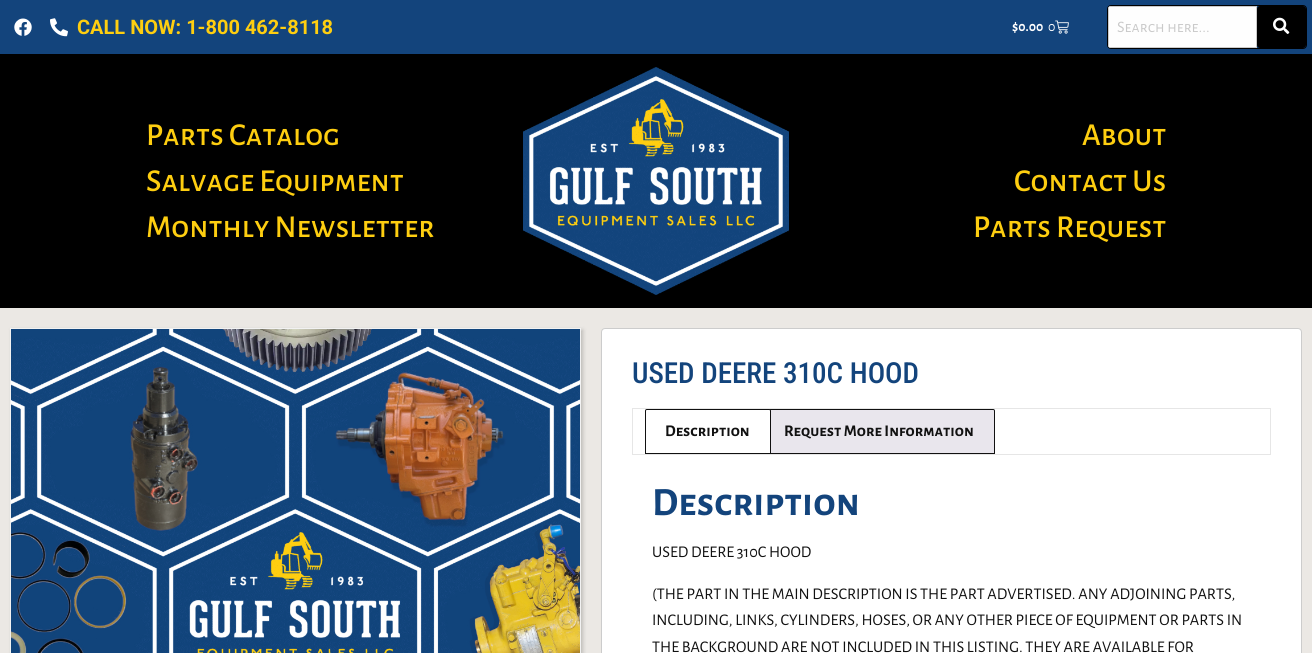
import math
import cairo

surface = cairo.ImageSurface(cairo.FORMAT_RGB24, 1312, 653)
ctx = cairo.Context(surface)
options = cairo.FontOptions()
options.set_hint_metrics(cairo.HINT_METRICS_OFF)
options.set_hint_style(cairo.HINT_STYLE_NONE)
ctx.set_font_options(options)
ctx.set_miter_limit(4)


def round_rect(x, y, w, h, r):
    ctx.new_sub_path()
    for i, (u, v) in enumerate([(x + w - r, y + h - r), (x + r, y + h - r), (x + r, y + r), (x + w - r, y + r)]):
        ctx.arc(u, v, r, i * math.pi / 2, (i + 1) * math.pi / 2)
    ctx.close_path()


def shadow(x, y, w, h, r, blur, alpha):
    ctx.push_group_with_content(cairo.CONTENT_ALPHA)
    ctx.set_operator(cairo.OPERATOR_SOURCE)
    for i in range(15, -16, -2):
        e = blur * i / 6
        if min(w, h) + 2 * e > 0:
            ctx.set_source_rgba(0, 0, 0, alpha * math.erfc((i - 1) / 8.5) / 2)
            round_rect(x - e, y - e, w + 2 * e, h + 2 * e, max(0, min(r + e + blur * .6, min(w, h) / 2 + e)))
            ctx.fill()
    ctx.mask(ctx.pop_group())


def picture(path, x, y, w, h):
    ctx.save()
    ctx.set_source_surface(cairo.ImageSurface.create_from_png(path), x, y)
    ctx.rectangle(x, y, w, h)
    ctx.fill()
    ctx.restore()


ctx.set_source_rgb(0.918, 0.91, 0.894)
ctx.paint()
ctx.set_source_rgb(0.078, 0.267, 0.486)
ctx.rectangle(0, 0, 1312, 54)
ctx.fill()
picture("img1.png", 14, 18, 18, 18)
picture("img2.png", 50, 18, 18, 19)
ctx.select_font_face("Roboto", cairo.FONT_SLANT_NORMAL, cairo.FONT_WEIGHT_BOLD)
ctx.set_font_size(20)
ctx.set_source_rgb(0.996, 0.808, 0.063)
ctx.move_to(77, 34)
ctx.show_text("CALL NOW: 1-800 462-8118")
ctx.select_font_face("Alegreya Sans SC", cairo.FONT_SLANT_NORMAL, cairo.FONT_WEIGHT_BOLD)
ctx.set_font_size(14)
ctx.set_source_rgb(1, 1, 1)
ctx.move_to(1012, 31)
ctx.show_text("$0.00")
ctx.select_font_face("Alegreya Sans SC")
ctx.move_to(1048, 31)
ctx.show_text("0")
picture("img3.png", 1055, 20, 14, 14)
round_rect(1107.5, 5.5, 199, 43, 3.5)
ctx.set_source_rgb(0, 0, 0)
ctx.set_line_width(1)
ctx.stroke()
ctx.set_source_rgb(0.996, 0.996, 0.996)
ctx.new_path()
ctx.move_to(1111, 6)
ctx.line_to(1257, 6)
ctx.line_to(1257, 48)
ctx.line_to(1111, 48)
ctx.curve_to(1109.5, 48, 1108, 46.5, 1108, 45)
ctx.line_to(1108, 9)
ctx.curve_to(1108, 7.5, 1109.5, 6, 1111, 6)
ctx.close_path()
ctx.fill()
ctx.set_source_rgb(0.792, 0.792, 0.792)
ctx.set_fill_rule(cairo.FILL_RULE_EVEN_ODD)
ctx.new_path()
ctx.move_to(1111, 6)
ctx.curve_to(1109, 6, 1108, 7, 1108, 9)
ctx.line_to(1108, 45)
ctx.curve_to(1108, 47, 1109, 48, 1111, 48)
ctx.line_to(1257, 48)
ctx.line_to(1257, 6)
ctx.close_path()
ctx.move_to(1109, 7)
ctx.line_to(1109, 47)
ctx.line_to(1256, 47)
ctx.line_to(1256, 7)
ctx.close_path()
ctx.fill()
ctx.set_font_size(16)
ctx.move_to(1117, 32)
ctx.show_text("Search here...")
ctx.set_source_rgb(0, 0, 0)
round_rect(1257, 6, 49, 42, 3)
ctx.fill()
picture("img4.png", 1273, 17, 17, 17)
ctx.rectangle(0, 54, 1312, 254)
ctx.fill()
ctx.select_font_face("Alegreya Sans SC Medium")
ctx.set_font_size(32)
ctx.set_source_rgb(0.996, 0.808, 0.063)
ctx.move_to(146, 145)
ctx.show_text("Parts Catalog")
ctx.move_to(146, 191)
ctx.show_text("Salvage Equipment")
ctx.move_to(146, 237)
ctx.show_text("Monthly Newsletter")
picture("img5.png", 523, 67, 266, 228)
ctx.move_to(1082, 145)
ctx.show_text("About")
ctx.move_to(1014, 191)
ctx.show_text("Contact Us")
ctx.move_to(973, 237)
ctx.show_text("Parts Request")
ctx.set_source_rgb(0, 0, 0)
shadow(12, 330, 571, 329, 0, 2, 0.2)
ctx.rectangle(10.5, 328.5, 570, 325)
ctx.set_source_rgb(0.949, 0.949, 0.949)
ctx.stroke()
picture("img6.png", 11, 329, 569, 324)
ctx.set_source_rgb(1, 1, 1)
round_rect(601.5, 328.5, 700, 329, 3.5)
ctx.fill_preserve()
ctx.set_source_rgb(0.8, 0.8, 0.8)
ctx.stroke()
ctx.select_font_face("Roboto Condensed Medium")
ctx.set_font_size(29)
ctx.set_source_rgb(0.078, 0.267, 0.486)
ctx.move_to(632, 383)
ctx.show_text("USED DEERE 310C HOOD")
ctx.rectangle(632.5, 408.5, 638, 46)
ctx.set_source_rgb(0.902, 0.902, 0.902)
ctx.stroke()
ctx.set_source_rgb(0.914, 0.902, 0.929)
ctx.new_path()
ctx.move_to(765, 409.5)
ctx.line_to(993, 409.5)
ctx.curve_to(994, 409.5, 994.5, 410, 994.5, 411)
ctx.line_to(994.5, 453.5)
ctx.line_to(763.5, 453.5)
ctx.line_to(763.5, 411)
ctx.curve_to(763.5, 410, 764, 409.5, 765, 409.5)
ctx.close_path()
ctx.fill_preserve()
ctx.set_source_rgb(0.067, 0.067, 0.067)
ctx.stroke()
ctx.set_source_rgb(1, 1, 1)
ctx.new_path()
ctx.move_to(647, 409.5)
ctx.line_to(769, 409.5)
ctx.curve_to(770, 409.5, 770.5, 410, 770.5, 411)
ctx.line_to(770.5, 453.5)
ctx.line_to(645.5, 453.5)
ctx.line_to(645.5, 411)
ctx.curve_to(645.5, 410, 646, 409.5, 647, 409.5)
ctx.close_path()
ctx.fill_preserve()
ctx.set_source_rgb(0.067, 0.067, 0.067)
ctx.stroke()
ctx.select_font_face("Alegreya Sans SC", cairo.FONT_SLANT_NORMAL, cairo.FONT_WEIGHT_BOLD)
ctx.set_font_size(16.3)
ctx.move_to(665, 436)
ctx.show_text("Description")
ctx.move_to(784, 436)
ctx.show_text("Request More Information")
ctx.set_font_size(40)
ctx.set_source_rgb(0.078, 0.267, 0.486)
ctx.move_to(652, 515)
ctx.show_text("Description")
ctx.select_font_face("Alegreya Sans SC")
ctx.set_font_size(16.3)
ctx.set_source_rgb(0.067, 0.067, 0.067)
ctx.move_to(652, 557)
ctx.show_text("USED DEERE 310C HOOD")
ctx.move_to(652, 599)
ctx.show_text("(THE PART IN THE MAIN DESCRIPTION IS THE PART ADVERTISED. ANY ADJOINING PARTS,")
ctx.move_to(652, 625)
ctx.show_text("INCLUDING, LINKS, CYLINDERS, HOSES, OR ANY OTHER PIECE OF EQUIPMENT OR PARTS IN")
ctx.move_to(652, 652)
ctx.show_text("THE BACKGROUND ARE NOT INCLUDED IN THIS LISTING. THEY ARE AVAILABLE FOR")
surface.write_to_png("page.png")
